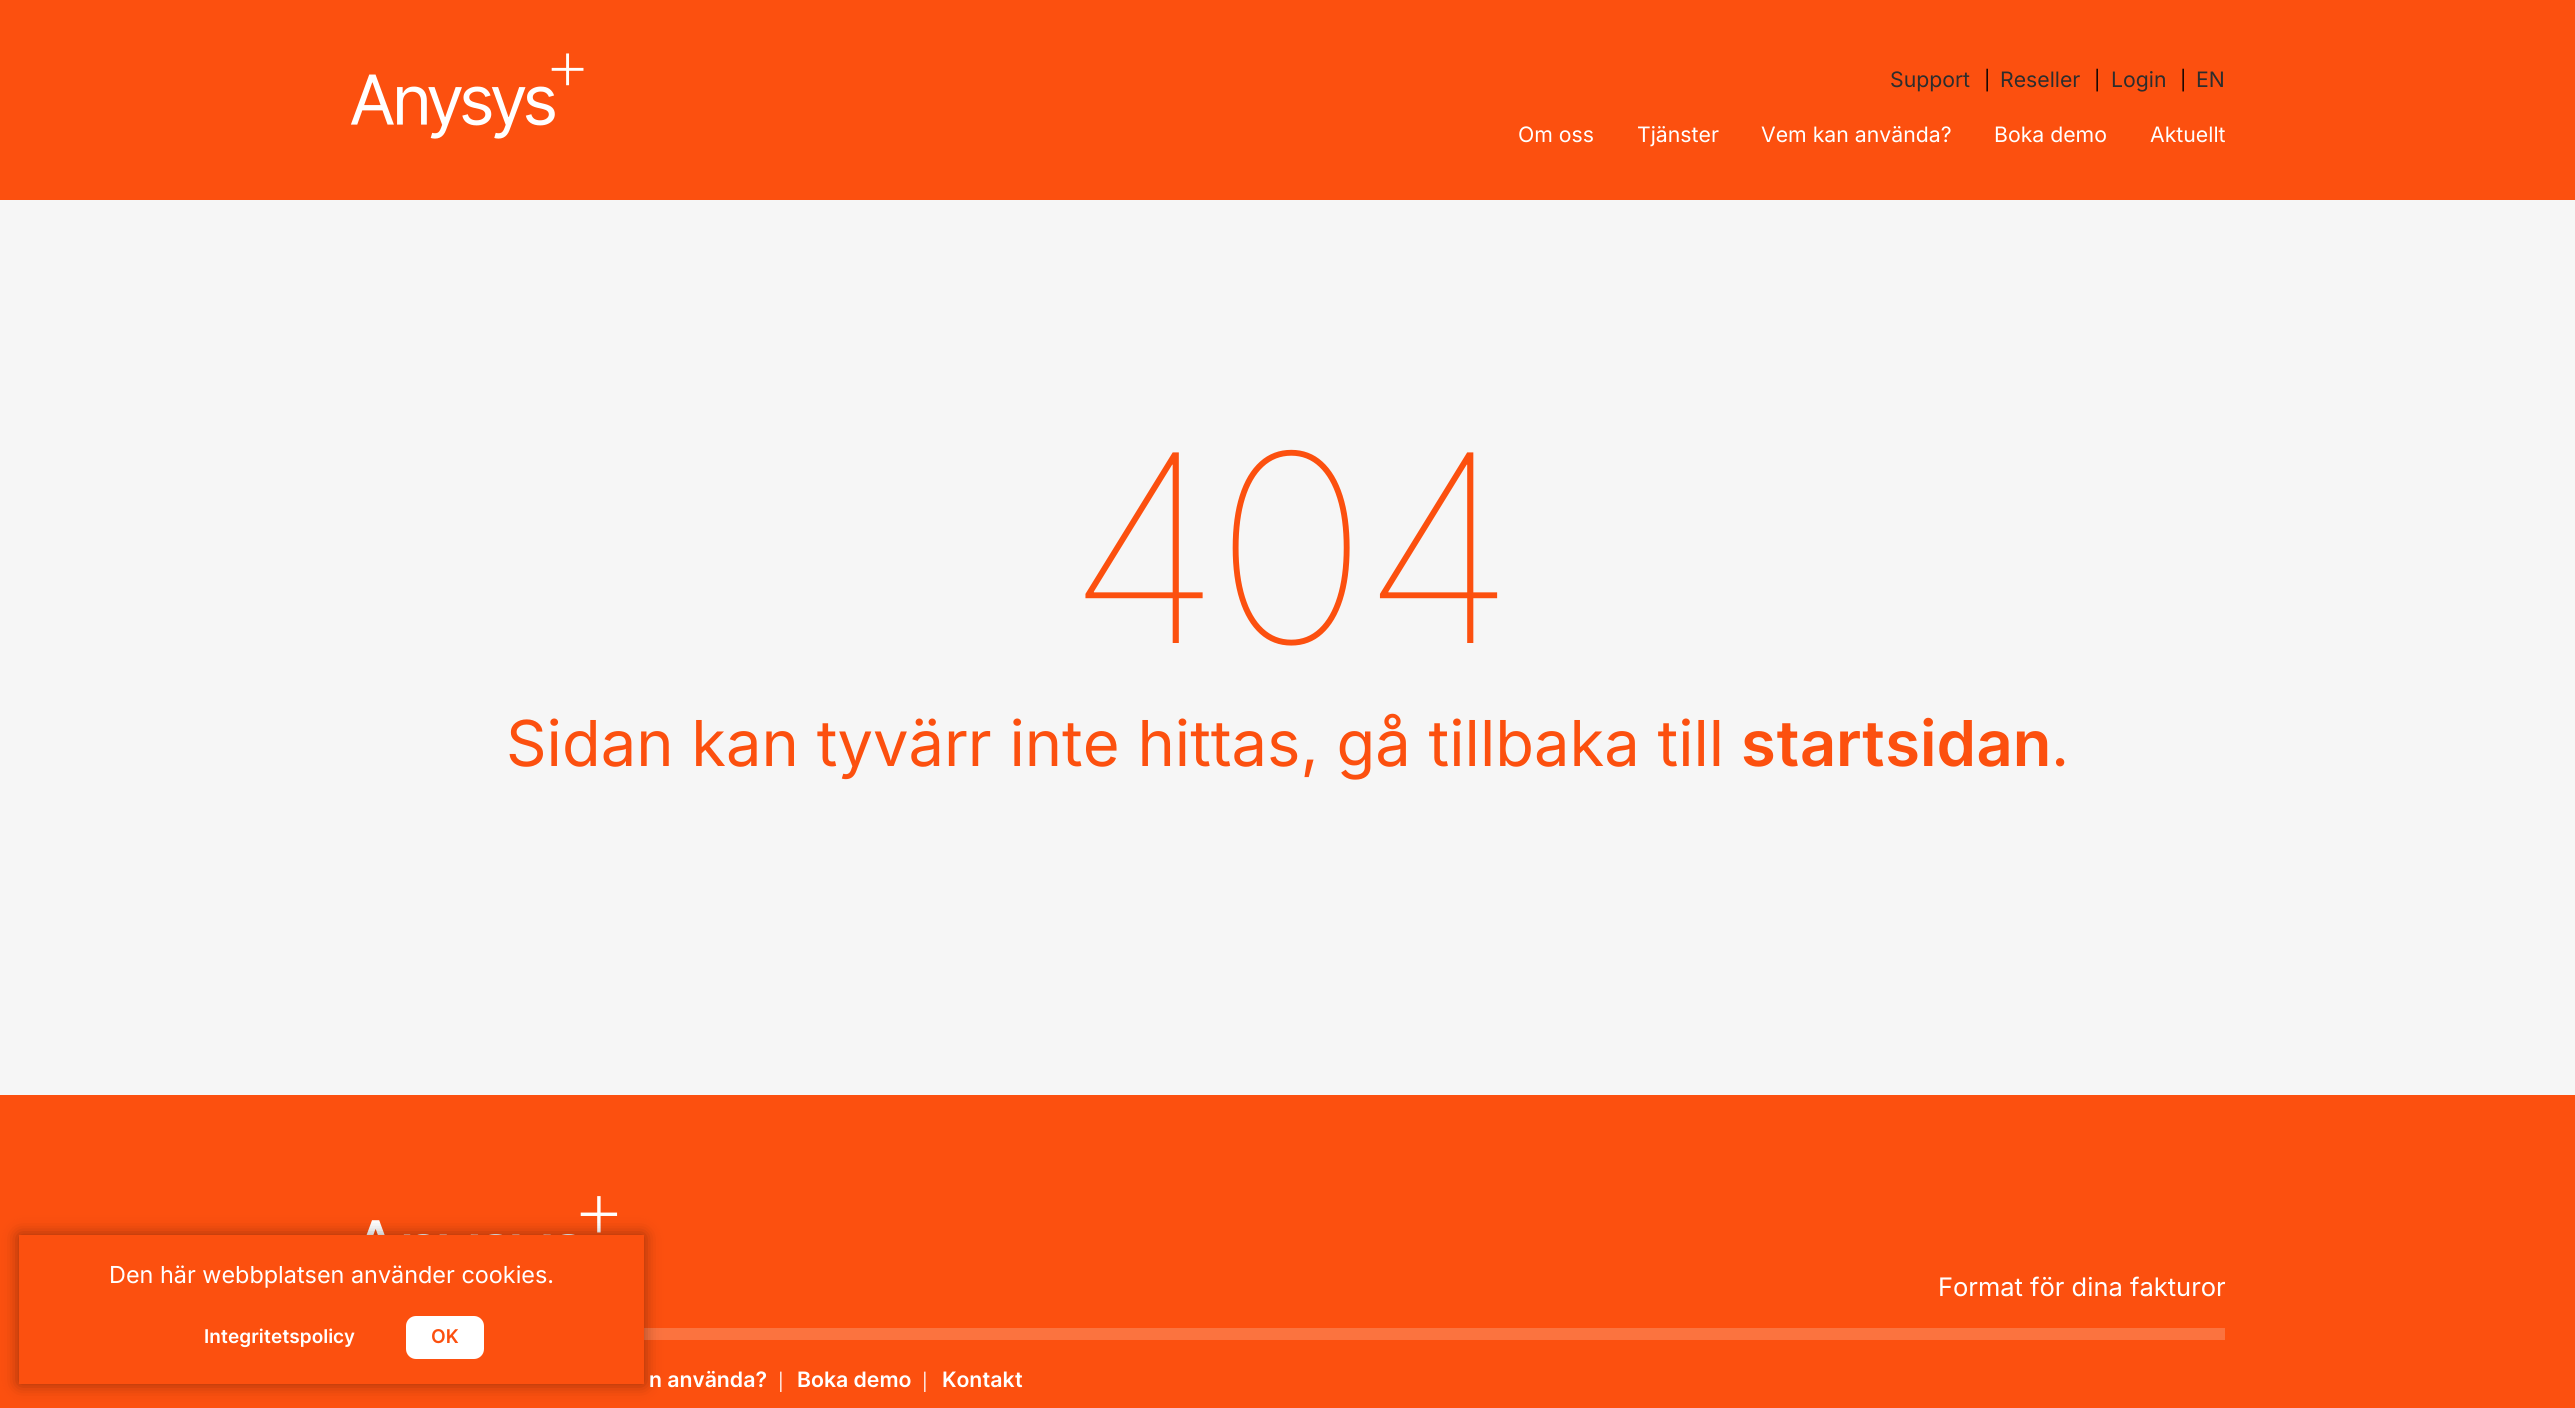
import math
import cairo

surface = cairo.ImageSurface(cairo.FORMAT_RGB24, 2575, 1408)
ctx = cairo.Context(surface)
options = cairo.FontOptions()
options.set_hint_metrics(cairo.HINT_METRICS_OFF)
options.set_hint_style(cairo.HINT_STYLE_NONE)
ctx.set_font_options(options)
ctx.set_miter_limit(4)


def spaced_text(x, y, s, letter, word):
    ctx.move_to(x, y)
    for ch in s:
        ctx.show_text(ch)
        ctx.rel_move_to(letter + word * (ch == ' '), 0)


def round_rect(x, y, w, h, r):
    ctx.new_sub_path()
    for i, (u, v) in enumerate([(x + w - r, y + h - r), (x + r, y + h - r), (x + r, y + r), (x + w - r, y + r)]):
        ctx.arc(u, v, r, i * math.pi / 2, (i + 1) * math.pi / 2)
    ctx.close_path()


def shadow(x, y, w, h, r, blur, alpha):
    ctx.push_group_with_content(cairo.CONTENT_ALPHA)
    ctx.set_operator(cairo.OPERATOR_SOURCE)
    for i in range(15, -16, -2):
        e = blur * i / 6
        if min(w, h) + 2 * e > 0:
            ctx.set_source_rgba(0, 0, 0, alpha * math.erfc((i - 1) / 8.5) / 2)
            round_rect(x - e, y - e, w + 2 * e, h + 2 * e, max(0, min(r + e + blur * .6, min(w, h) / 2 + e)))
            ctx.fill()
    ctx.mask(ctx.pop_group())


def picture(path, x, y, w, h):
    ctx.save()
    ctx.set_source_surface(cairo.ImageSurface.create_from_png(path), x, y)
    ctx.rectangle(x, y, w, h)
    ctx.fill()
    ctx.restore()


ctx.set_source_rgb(0.961, 0.961, 0.961)
ctx.paint()
ctx.set_source_rgb(0.988, 0.314, 0.059)
ctx.rectangle(0, 0, 2575, 200)
ctx.fill()
picture("img1.png", 350, 53, 234, 86)
ctx.select_font_face("Inter")
ctx.set_font_size(21.25)
ctx.set_source_rgb(0.176, 0.176, 0.176)
ctx.move_to(1890, 87)
ctx.show_text("Support")
ctx.set_font_size(19)
ctx.set_source_rgb(0, 0, 0)
ctx.move_to(1984, 87)
ctx.show_text("|")
ctx.set_font_size(21.25)
ctx.set_source_rgb(0.176, 0.176, 0.176)
ctx.move_to(2000, 87)
ctx.show_text("Reseller")
ctx.set_font_size(19)
ctx.set_source_rgb(0, 0, 0)
ctx.move_to(2094, 87)
ctx.show_text("|")
ctx.set_font_size(21.25)
ctx.set_source_rgb(0.176, 0.176, 0.176)
ctx.move_to(2111, 87)
ctx.show_text("Login")
ctx.set_font_size(19)
ctx.set_source_rgb(0, 0, 0)
ctx.move_to(2180, 87)
ctx.show_text("|")
ctx.set_font_size(21.25)
ctx.set_source_rgb(0.176, 0.176, 0.176)
ctx.move_to(2196, 87)
ctx.show_text("EN")
ctx.set_source_rgb(1, 1, 1)
ctx.move_to(1518, 142)
ctx.show_text("Om oss")
ctx.move_to(1637, 142)
ctx.show_text("Tjänster")
ctx.move_to(1761, 142)
ctx.show_text("Vem kan använda?")
ctx.move_to(1994, 142)
ctx.show_text("Boka demo")
ctx.move_to(2150, 142)
ctx.show_text("Aktuellt")
ctx.select_font_face("Inter Thin")
ctx.set_font_size(262)
ctx.set_source_rgb(0.988, 0.314, 0.059)
spaced_text(1066, 643, "404", -8, 0)
ctx.select_font_face("Inter")
ctx.set_font_size(63.25)
ctx.move_to(506, 766)
ctx.show_text("Sidan kan tyvärr inte hittas, gå tillbaka till")
ctx.select_font_face("Inter SemiBold")
ctx.move_to(1741, 766)
ctx.show_text("startsidan")
ctx.select_font_face("Inter")
ctx.move_to(2051, 766)
ctx.show_text(".")
ctx.rectangle(0, 1095, 2575, 313)
ctx.fill()
ctx.set_source_rgb(0.984, 0.451, 0.247)
ctx.rectangle(644, 1328, 1581, 12)
ctx.fill()
picture("img2.png", 366, 1196, 252, 39)
ctx.set_source_rgb(0, 0, 0)
shadow(19, 1235, 625, 149, 0, 8, 0.4)
ctx.set_source_rgb(0.988, 0.314, 0.059)
ctx.rectangle(19, 1235, 625, 149)
ctx.fill()
ctx.set_font_size(23.4)
ctx.set_source_rgb(1, 1, 1)
ctx.move_to(109, 1283)
ctx.show_text("Den här webbplatsen använder cookies.")
ctx.select_font_face("Inter SemiBold")
ctx.set_font_size(19)
ctx.move_to(204, 1343)
ctx.show_text("Integritetspolicy")
round_rect(406, 1316, 78, 43, 10)
ctx.fill()
ctx.set_source_rgb(0.988, 0.314, 0.059)
ctx.move_to(431, 1343)
ctx.show_text("OK")
ctx.select_font_face("Inter")
ctx.set_font_size(25.5)
ctx.set_source_rgb(1, 1, 1)
ctx.move_to(1938, 1296)
ctx.show_text("Format för dina fakturor")
ctx.select_font_face("Inter SemiBold")
ctx.set_font_size(21.25)
ctx.move_to(649, 1387)
ctx.show_text("n använda?")
ctx.select_font_face("Inter")
ctx.set_font_size(17)
ctx.move_to(778, 1388)
ctx.show_text("|")
ctx.select_font_face("Inter SemiBold")
ctx.set_font_size(21.25)
ctx.move_to(797, 1387)
ctx.show_text("Boka demo")
ctx.select_font_face("Inter")
ctx.set_font_size(17)
ctx.move_to(922, 1388)
ctx.show_text("|")
ctx.select_font_face("Inter SemiBold")
ctx.set_font_size(21.25)
ctx.move_to(942, 1387)
ctx.show_text("Kontakt")
surface.write_to_png("page.png")
